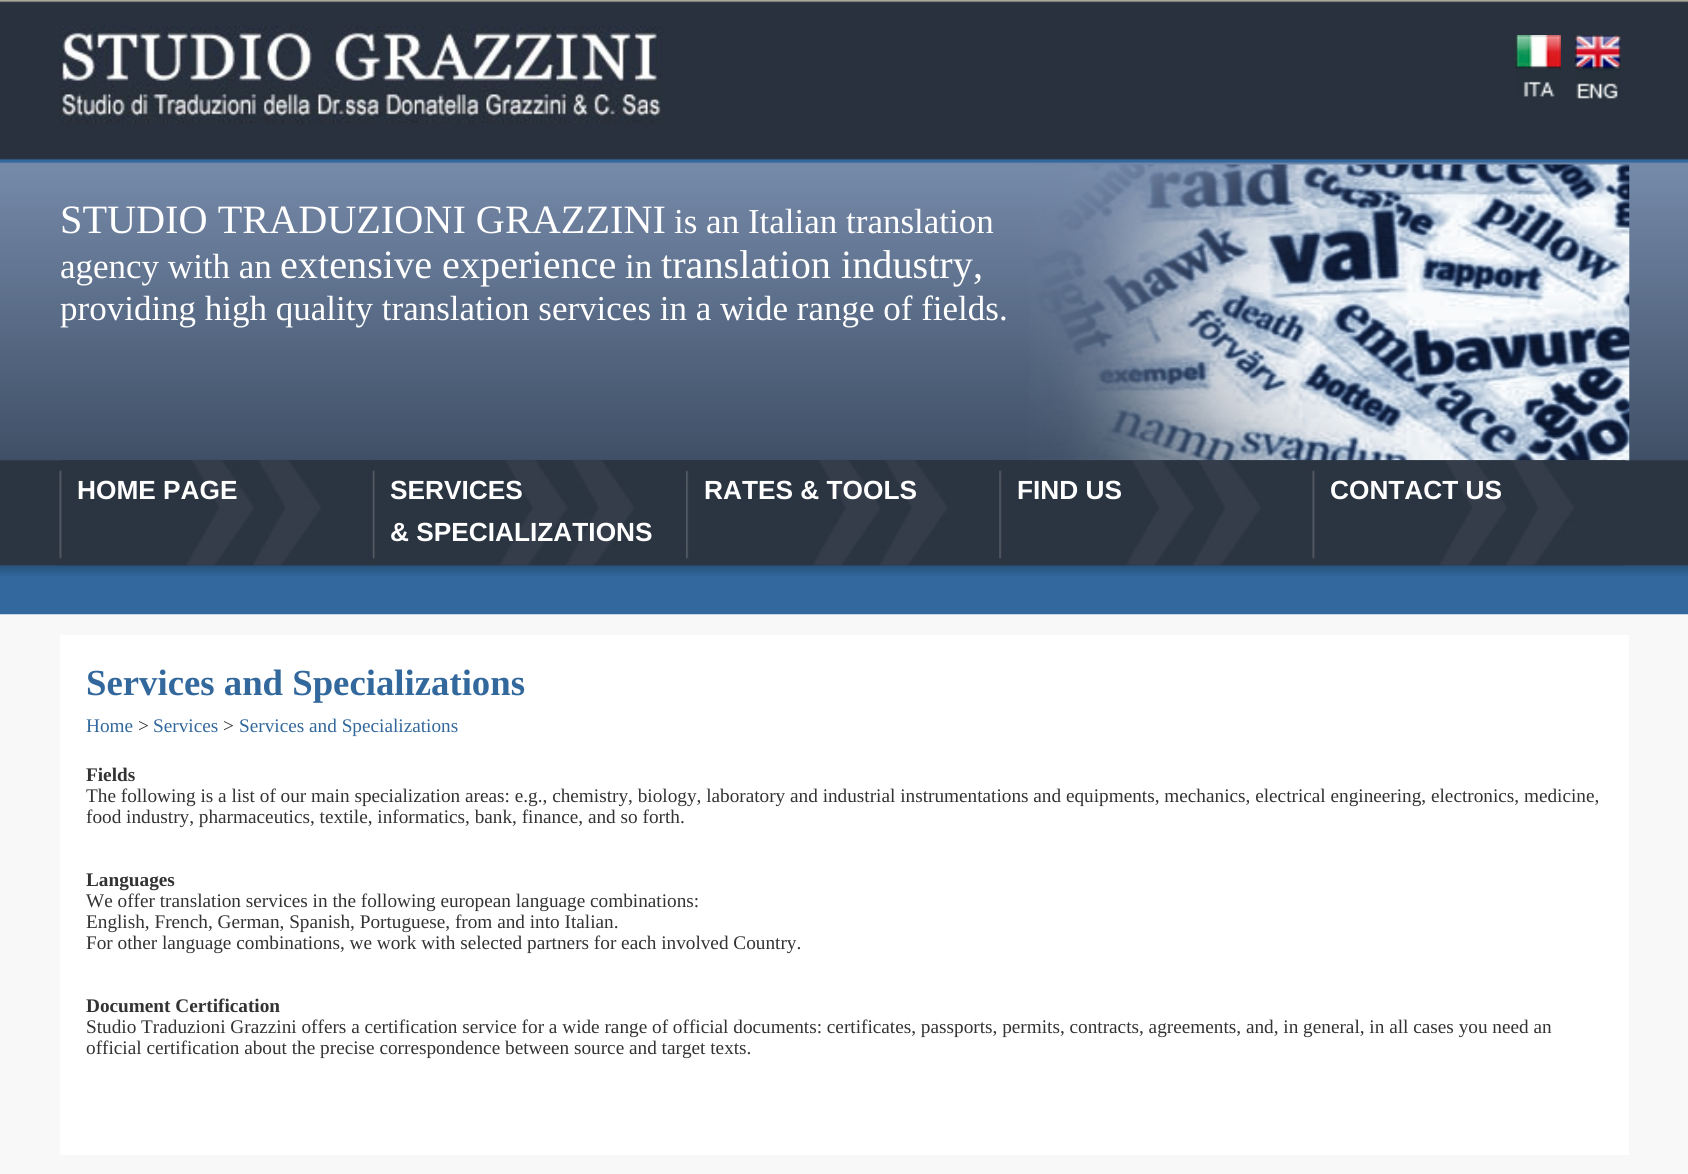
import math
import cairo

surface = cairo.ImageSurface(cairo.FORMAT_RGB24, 1688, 1174)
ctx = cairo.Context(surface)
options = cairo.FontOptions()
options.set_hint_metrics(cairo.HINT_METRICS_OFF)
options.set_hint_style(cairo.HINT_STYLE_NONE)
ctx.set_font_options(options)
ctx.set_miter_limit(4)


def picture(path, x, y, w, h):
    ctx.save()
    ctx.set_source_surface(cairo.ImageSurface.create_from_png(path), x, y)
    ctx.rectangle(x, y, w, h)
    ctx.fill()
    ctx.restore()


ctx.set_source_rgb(0.969, 0.969, 0.969)
ctx.paint()
picture("img1.png", 0, 0, 1688, 615)
picture("img2.png", 59, 26, 603, 97)
picture("img3.png", 1515, 35, 46, 62)
picture("img4.png", 1575, 35, 46, 64)
picture("img5.png", 1029, 164, 601, 297)
ctx.select_font_face("Liberation Serif")
ctx.set_font_size(40.25)
ctx.set_source_rgb(1, 1, 1)
ctx.move_to(60, 233)
ctx.show_text("STUDIO TRADUZIONI GRAZZINI")
ctx.set_font_size(35)
ctx.move_to(674, 233)
ctx.show_text("is an Italian translation")
ctx.move_to(60, 278)
ctx.show_text("agency with an")
ctx.set_font_size(40.25)
ctx.move_to(280, 278)
ctx.show_text("extensive experience")
ctx.set_font_size(35)
ctx.move_to(625, 278)
ctx.show_text("in")
ctx.set_font_size(40.25)
ctx.move_to(661, 278)
ctx.show_text("translation industry,")
ctx.set_font_size(35)
ctx.move_to(60, 320)
ctx.show_text("providing high quality translation services in a wide range of fields.")
picture("img6.png", 59, 460, 314, 106)
ctx.select_font_face("Liberation Sans", cairo.FONT_SLANT_NORMAL, cairo.FONT_WEIGHT_BOLD)
ctx.set_font_size(26.25)
ctx.move_to(77, 499)
ctx.show_text("HOME PAGE")
picture("img7.png", 372, 460, 314, 106)
ctx.move_to(390, 499)
ctx.show_text("SERVICES")
ctx.move_to(390, 541)
ctx.show_text("& SPECIALIZATIONS")
picture("img8.png", 686, 460, 313, 106)
ctx.move_to(704, 499)
ctx.show_text("RATES & TOOLS")
picture("img9.png", 999, 460, 314, 106)
ctx.move_to(1017, 499)
ctx.show_text("FIND US")
picture("img10.png", 1312, 460, 314, 106)
ctx.move_to(1330, 499)
ctx.show_text("CONTACT US")
ctx.rectangle(60, 635, 1569, 520)
ctx.fill()
ctx.select_font_face("Liberation Serif", cairo.FONT_SLANT_NORMAL, cairo.FONT_WEIGHT_BOLD)
ctx.set_font_size(36.75)
ctx.set_source_rgb(0.2, 0.408, 0.612)
ctx.move_to(86, 695)
ctx.show_text("Services and Specializations")
ctx.select_font_face("Liberation Serif")
ctx.set_font_size(19.25)
ctx.move_to(86, 732)
ctx.show_text("Home")
ctx.set_source_rgb(0.2, 0.2, 0.2)
ctx.move_to(138, 732)
ctx.show_text(">")
ctx.set_source_rgb(0.2, 0.408, 0.612)
ctx.move_to(153, 732)
ctx.show_text("Services")
ctx.set_source_rgb(0.2, 0.2, 0.2)
ctx.move_to(223, 732)
ctx.show_text(">")
ctx.set_source_rgb(0.2, 0.408, 0.612)
ctx.move_to(239, 732)
ctx.show_text("Services and Specializations")
ctx.select_font_face("Liberation Serif", cairo.FONT_SLANT_NORMAL, cairo.FONT_WEIGHT_BOLD)
ctx.set_source_rgb(0.2, 0.2, 0.2)
ctx.move_to(86, 781)
ctx.show_text("Fields")
ctx.select_font_face("Liberation Serif")
ctx.move_to(86, 802)
ctx.show_text("The following is a list of our main specialization areas: e.g., chemistry, biology, laboratory and industrial instrumentations and equipments, mechanics, electrical engineering, electronics, medicine,")
ctx.move_to(86, 823)
ctx.show_text("food industry, pharmaceutics, textile, informatics, bank, finance, and so forth.")
ctx.select_font_face("Liberation Serif", cairo.FONT_SLANT_NORMAL, cairo.FONT_WEIGHT_BOLD)
ctx.move_to(86, 886)
ctx.show_text("Languages")
ctx.select_font_face("Liberation Serif")
ctx.move_to(86, 907)
ctx.show_text("We offer translation services in the following european language combinations:")
ctx.move_to(86, 928)
ctx.show_text("English, French, German, Spanish, Portuguese, from and into Italian.")
ctx.move_to(86, 949)
ctx.show_text("For other language combinations, we work with selected partners for each involved Country.")
ctx.select_font_face("Liberation Serif", cairo.FONT_SLANT_NORMAL, cairo.FONT_WEIGHT_BOLD)
ctx.move_to(86, 1012)
ctx.show_text("Document Certification")
ctx.select_font_face("Liberation Serif")
ctx.move_to(86, 1033)
ctx.show_text("Studio Traduzioni Grazzini offers a certification service for a wide range of official documents: certificates, passports, permits, contracts, agreements, and, in general, in all cases you need an")
ctx.move_to(86, 1054)
ctx.show_text("official certification about the precise correspondence between source and target texts.")
surface.write_to_png("page.png")
